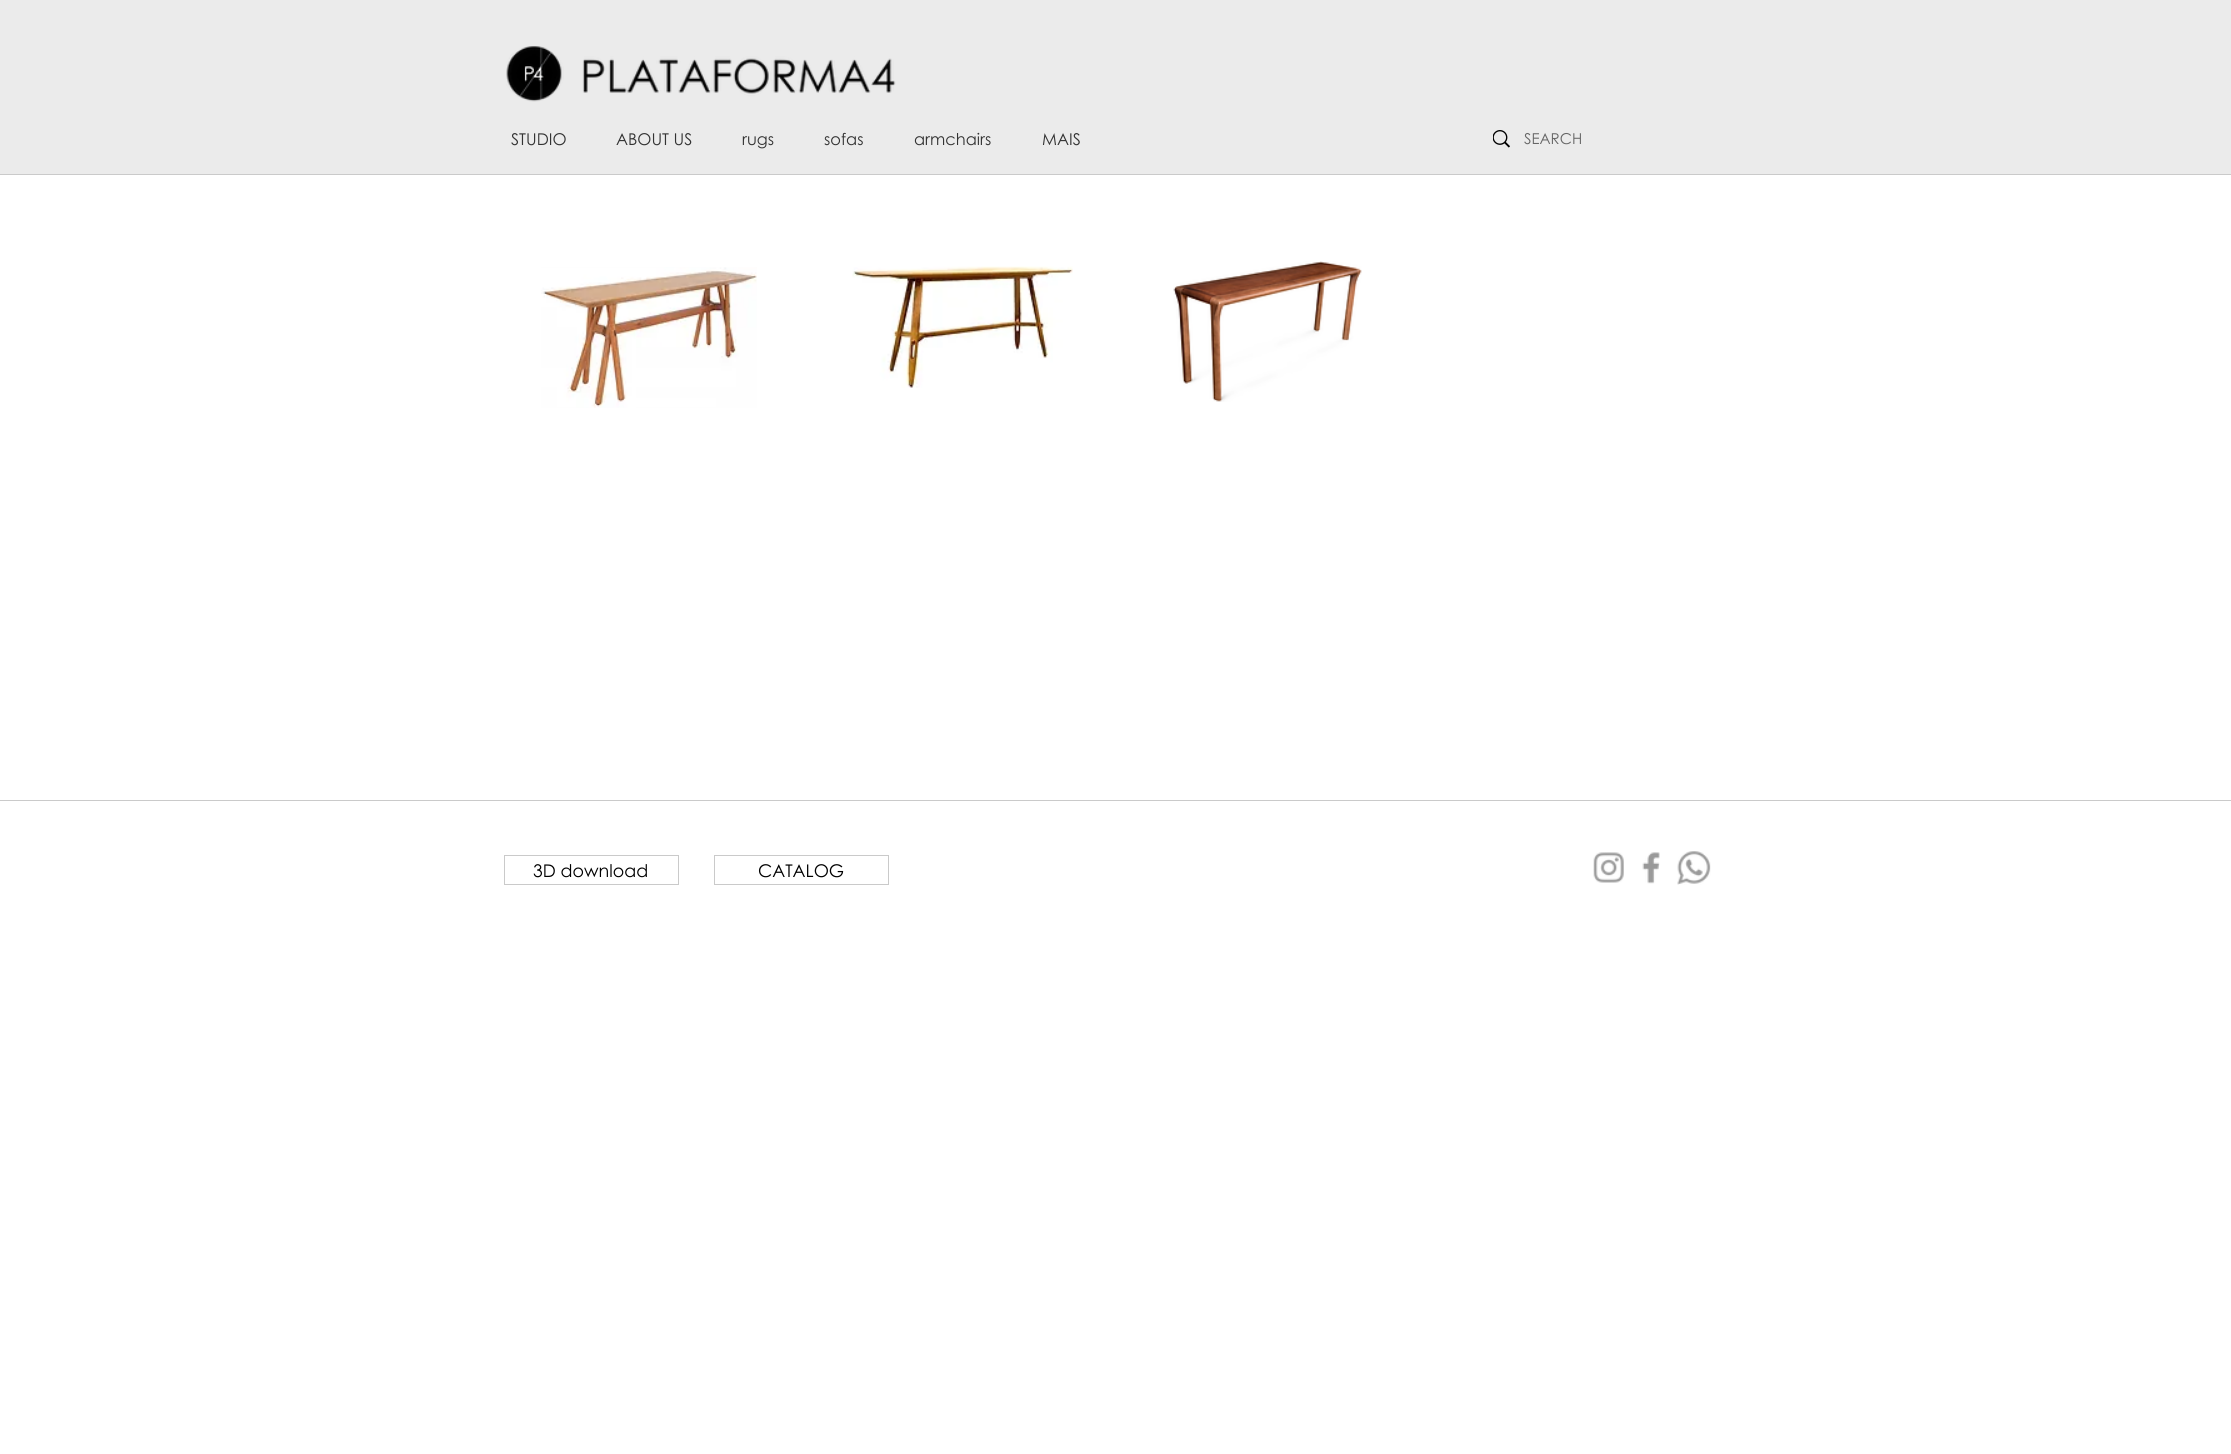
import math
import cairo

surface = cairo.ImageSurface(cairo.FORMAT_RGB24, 2231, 1454)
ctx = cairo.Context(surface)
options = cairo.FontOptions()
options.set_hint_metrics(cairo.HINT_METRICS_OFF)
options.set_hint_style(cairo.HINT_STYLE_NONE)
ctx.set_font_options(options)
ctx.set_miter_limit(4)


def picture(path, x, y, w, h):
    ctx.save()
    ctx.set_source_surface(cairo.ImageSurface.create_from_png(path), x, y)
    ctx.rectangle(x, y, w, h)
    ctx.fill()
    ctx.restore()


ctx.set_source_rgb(1, 1, 1)
ctx.paint()
ctx.set_source_rgb(0.792, 0.792, 0.792)
ctx.rectangle(0, 174, 2231, 1)
ctx.fill()
ctx.set_source_rgb(0.918, 0.918, 0.918)
ctx.rectangle(0, 0, 2231, 174)
ctx.fill()
picture("img1.png", 506, 46, 390, 56)
ctx.select_font_face("Century Gothic")
ctx.set_font_size(16.25)
ctx.set_source_rgb(0.2, 0.2, 0.2)
ctx.move_to(511, 145)
ctx.show_text("STUDIO")
ctx.move_to(616, 145)
ctx.show_text("ABOUT US")
ctx.move_to(742, 145)
ctx.show_text("rugs")
ctx.move_to(824, 145)
ctx.show_text("sofas")
ctx.move_to(914, 145)
ctx.show_text("armchairs")
ctx.move_to(1042, 145)
ctx.show_text("MAIS")
picture("img2.png", 1493, 130, 17, 18)
ctx.set_font_size(15)
ctx.set_source_rgb(0.4, 0.4, 0.4)
ctx.move_to(1524, 144)
ctx.show_text("SEARCH")
picture("img3.png", 541, 267, 216, 141)
picture("img4.png", 852, 266, 221, 122)
picture("img5.png", 1173, 261, 189, 141)
ctx.set_source_rgb(0.792, 0.792, 0.792)
ctx.rectangle(0, 800, 2231, 1)
ctx.fill()
ctx.rectangle(504.5, 855.5, 174, 29)
ctx.set_line_width(1)
ctx.stroke()
ctx.set_font_size(17.5)
ctx.set_source_rgb(0, 0, 0)
ctx.move_to(533, 877)
ctx.show_text("3D download")
ctx.rectangle(714.5, 855.5, 174, 29)
ctx.set_source_rgb(0.792, 0.792, 0.792)
ctx.stroke()
ctx.set_source_rgb(0, 0, 0)
ctx.move_to(758, 877)
ctx.show_text("CATALOG")
picture("img6.png", 1593, 852, 31, 31)
picture("img7.png", 1642, 852, 18, 32)
picture("img8.png", 1677, 851, 34, 34)
surface.write_to_png("page.png")
